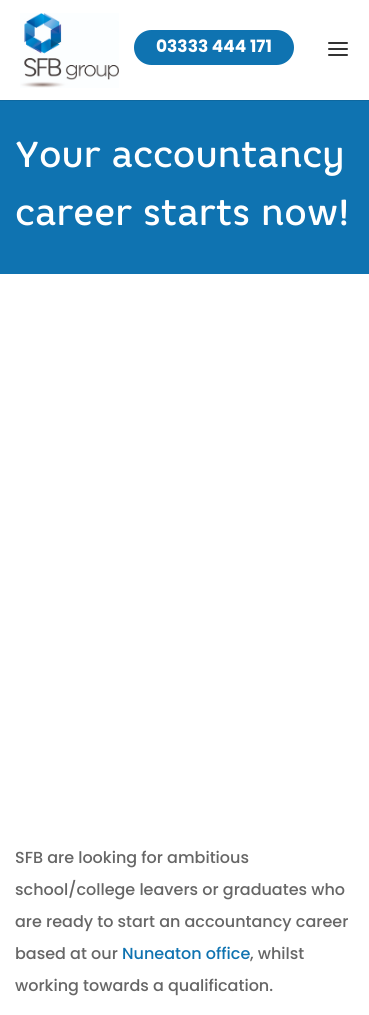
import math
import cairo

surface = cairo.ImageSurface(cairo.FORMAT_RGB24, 369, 1015)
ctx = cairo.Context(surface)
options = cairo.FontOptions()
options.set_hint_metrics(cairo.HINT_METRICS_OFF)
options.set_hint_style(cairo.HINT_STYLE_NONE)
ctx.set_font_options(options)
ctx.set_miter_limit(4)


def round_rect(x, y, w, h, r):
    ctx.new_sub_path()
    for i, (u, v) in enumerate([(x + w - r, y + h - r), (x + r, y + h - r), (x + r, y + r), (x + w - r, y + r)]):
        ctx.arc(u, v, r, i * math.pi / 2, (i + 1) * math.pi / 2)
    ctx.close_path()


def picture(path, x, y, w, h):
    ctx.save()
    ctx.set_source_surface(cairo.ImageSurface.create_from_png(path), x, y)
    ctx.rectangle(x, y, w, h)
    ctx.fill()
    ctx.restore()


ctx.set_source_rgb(1, 1, 1)
ctx.paint()
ctx.set_source_rgb(0.055, 0.408, 0.624)
ctx.rectangle(0, 100, 369, 1)
ctx.fill()
picture("img1.png", 20, 13, 99, 75)
picture("img2.png", 328, 42, 20, 14)
ctx.set_source_rgb(0.059, 0.451, 0.694)
round_rect(134, 30, 160, 35, 17.5)
ctx.fill()
ctx.select_font_face("Poppins", cairo.FONT_SLANT_NORMAL, cairo.FONT_WEIGHT_BOLD)
ctx.set_font_size(17)
ctx.set_source_rgb(1, 1, 1)
ctx.move_to(156, 52)
ctx.show_text("03333 444 171")
ctx.set_source_rgb(0.059, 0.451, 0.694)
ctx.rectangle(0, 101, 369, 173)
ctx.fill()
ctx.select_font_face("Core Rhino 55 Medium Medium")
ctx.set_font_size(36)
ctx.set_source_rgb(1, 1, 1)
ctx.move_to(15, 167)
ctx.show_text("Your accountancy")
ctx.move_to(15, 225)
ctx.show_text("career starts now!")
ctx.select_font_face("Poppins Medium")
ctx.set_font_size(16)
ctx.set_source_rgb(0.4, 0.4, 0.4)
ctx.move_to(15, 863)
ctx.show_text("SFB are looking for ambitious")
ctx.move_to(15, 895)
ctx.show_text("school/college leavers or graduates who")
ctx.move_to(15, 927)
ctx.show_text("are ready to start an accountancy career")
ctx.move_to(15, 959)
ctx.show_text("based at our")
ctx.set_source_rgb(0.059, 0.451, 0.694)
ctx.move_to(122, 959)
ctx.show_text("Nuneaton office")
ctx.set_source_rgb(0.4, 0.4, 0.4)
ctx.move_to(250, 959)
ctx.show_text(", whilst")
ctx.move_to(15, 991)
ctx.show_text("working towards a qualification.")
surface.write_to_png("page.png")
